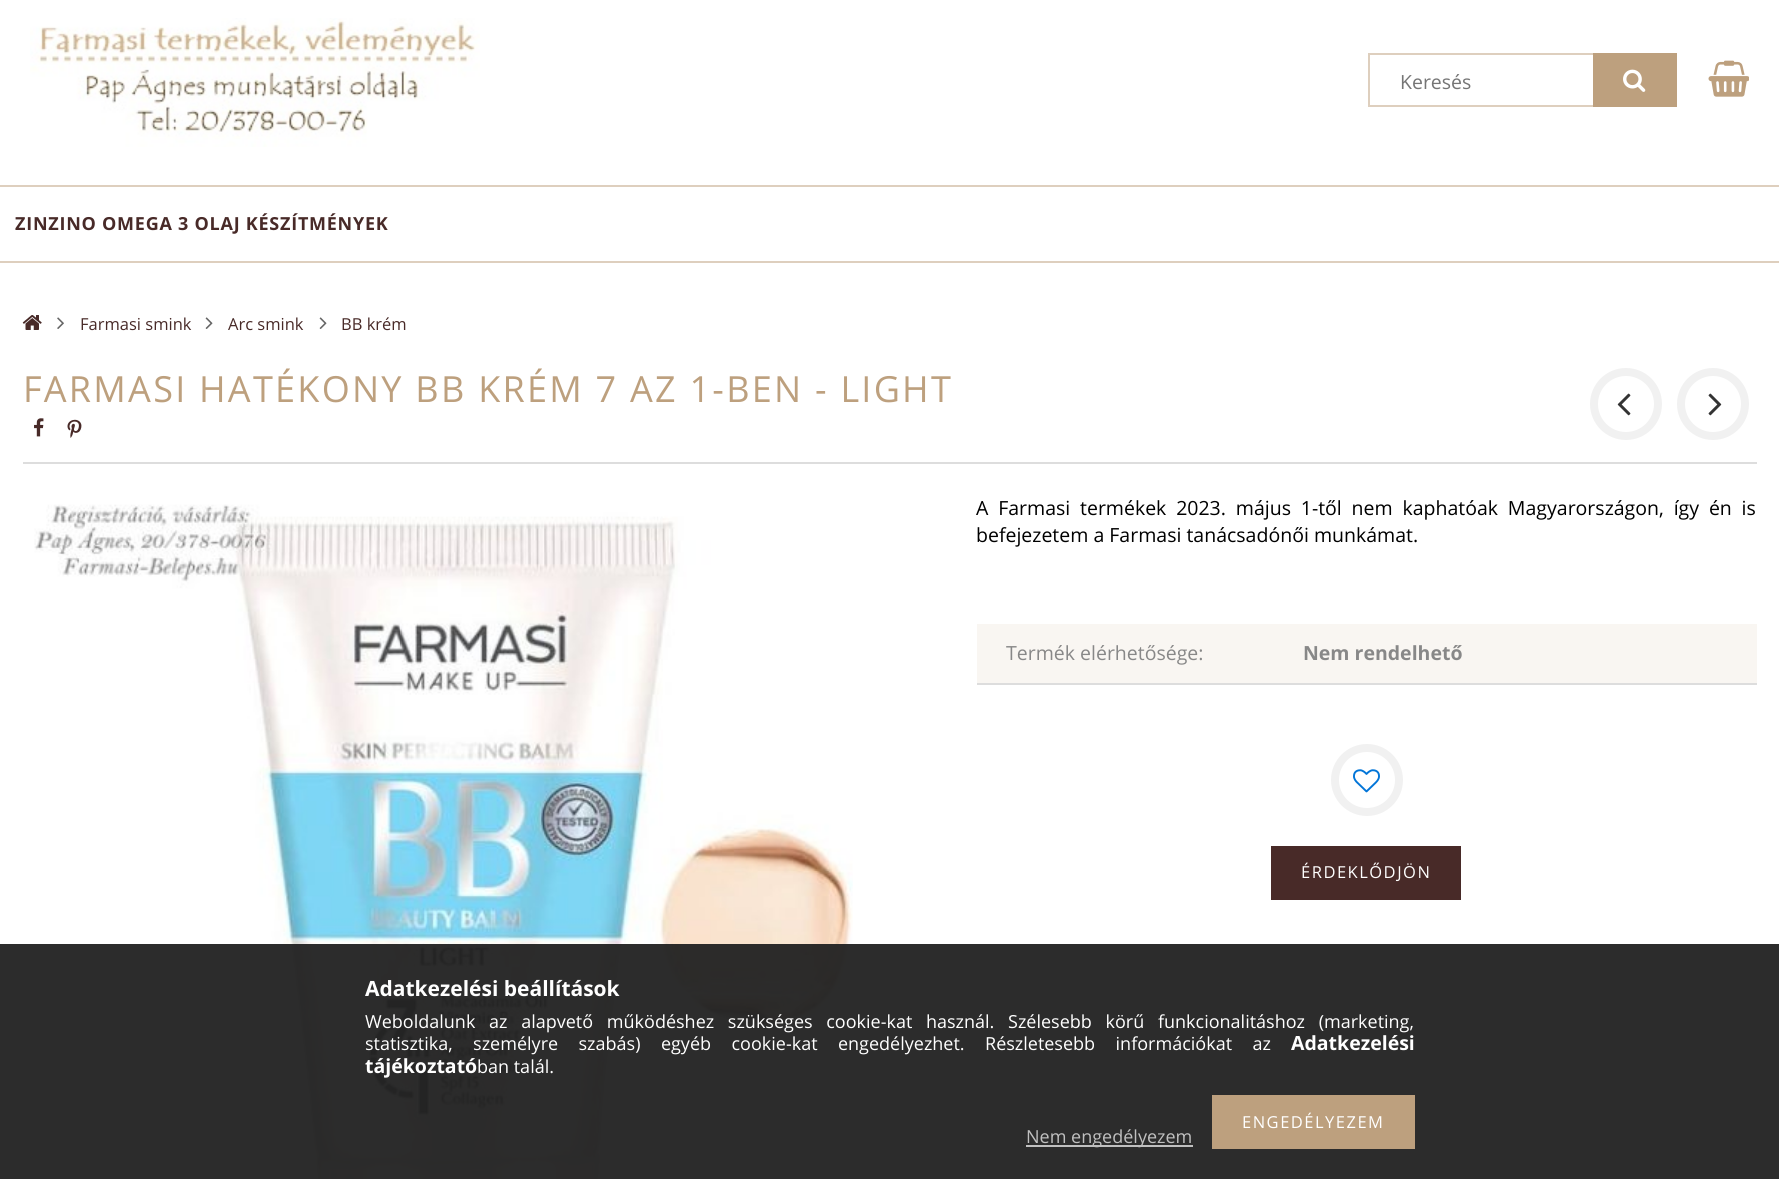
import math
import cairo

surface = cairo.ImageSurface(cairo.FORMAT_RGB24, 1779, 1179)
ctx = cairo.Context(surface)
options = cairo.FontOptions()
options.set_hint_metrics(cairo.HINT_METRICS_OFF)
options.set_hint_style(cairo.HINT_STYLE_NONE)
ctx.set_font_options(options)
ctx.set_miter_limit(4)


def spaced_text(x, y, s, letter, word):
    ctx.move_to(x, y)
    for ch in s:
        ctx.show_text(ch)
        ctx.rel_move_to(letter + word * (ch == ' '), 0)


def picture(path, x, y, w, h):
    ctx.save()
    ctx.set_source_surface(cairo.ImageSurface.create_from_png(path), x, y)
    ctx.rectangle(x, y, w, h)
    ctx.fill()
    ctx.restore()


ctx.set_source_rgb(1, 1, 1)
ctx.paint()
picture("img1.png", 30, 18, 450, 129)
ctx.rectangle(1369, 54, 307, 52)
ctx.set_source_rgb(0.871, 0.812, 0.745)
ctx.stroke()
ctx.select_font_face("Open Sans")
ctx.set_font_size(19.5)
ctx.set_source_rgb(0.459, 0.459, 0.459)
ctx.move_to(1400, 89)
ctx.show_text("Keresés")
ctx.set_source_rgb(0.741, 0.627, 0.494)
ctx.rectangle(1593, 53, 84, 54)
ctx.fill()
picture("img2.png", 1623, 69, 23, 23)
picture("img3.png", 1708, 60, 41, 37)
ctx.set_source_rgb(0.871, 0.812, 0.745)
ctx.rectangle(0, 185, 1779, 2)
ctx.fill()
ctx.rectangle(0, 261, 1779, 2)
ctx.fill()
ctx.select_font_face("Open Sans", cairo.FONT_SLANT_NORMAL, cairo.FONT_WEIGHT_BOLD)
ctx.set_font_size(18)
ctx.set_source_rgb(0.282, 0.165, 0.157)
spaced_text(15, 230, "ZINZINO OMEGA 3 OLAJ KÉSZÍTMÉNYEK", 0.75, 0)
picture("img4.png", 22, 315, 20, 15)
picture("img5.png", 57, 317, 7, 12)
ctx.select_font_face("Open Sans")
ctx.set_font_size(16.5)
ctx.move_to(80, 330)
ctx.show_text("Farmasi smink")
picture("img6.png", 205, 317, 8, 12)
ctx.move_to(228, 330)
ctx.show_text("Arc smink")
picture("img6.png", 319, 317, 8, 12)
ctx.move_to(341, 330)
ctx.show_text("BB krém")
ctx.set_source_rgb(0.867, 0.867, 0.867)
ctx.rectangle(23, 462, 1734, 2)
ctx.fill()
ctx.set_font_size(36)
ctx.set_source_rgb(0.741, 0.627, 0.494)
spaced_text(23, 402, "FARMASI HATÉKONY BB KRÉM 7 AZ 1-BEN - LIGHT", 2.25, 0)
picture("img7.png", 34, 418, 10, 19)
picture("img8.png", 67, 419, 15, 19)
ctx.arc(1626, 404, 32, 0, 2 * math.pi)
ctx.set_source_rgb(0.945, 0.945, 0.945)
ctx.set_line_width(8)
ctx.stroke()
picture("img9.png", 1617, 393, 14, 23)
ctx.arc(1713, 404, 32, 0, 2 * math.pi)
ctx.stroke()
picture("img10.png", 1708, 393, 14, 23)
picture("img11.png", 34, 504, 819, 675)
ctx.set_font_size(19.5)
ctx.set_source_rgb(0, 0, 0)
spaced_text(976, 515, "A Farmasi termékek 2023. május 1-től nem kaphatóak Magyarországon, így én is", 0, 4.75)
ctx.move_to(976, 542)
ctx.show_text("befejezetem a Farmasi tanácsadónői munkámat.")
ctx.set_source_rgb(0.867, 0.867, 0.867)
ctx.rectangle(977, 683, 780, 2)
ctx.fill()
ctx.set_source_rgb(0.973, 0.961, 0.949)
ctx.rectangle(977, 624, 780, 59)
ctx.fill()
ctx.set_source_rgb(0.533, 0.533, 0.533)
ctx.move_to(1006, 660)
ctx.show_text("Termék elérhetősége:")
ctx.select_font_face("Open Sans", cairo.FONT_SLANT_NORMAL, cairo.FONT_WEIGHT_BOLD)
ctx.move_to(1303, 660)
ctx.show_text("Nem rendelhető")
ctx.new_path()
ctx.arc(1367, 780, 32, 0, 2 * math.pi)
ctx.set_source_rgb(0.945, 0.945, 0.945)
ctx.stroke()
picture("img12.png", 1353, 769, 27, 24)
ctx.set_source_rgb(0.282, 0.165, 0.157)
ctx.rectangle(1271, 846, 190, 54)
ctx.fill()
ctx.select_font_face("Open Sans")
ctx.set_font_size(16.5)
ctx.set_source_rgb(1, 1, 1)
spaced_text(1301, 878, "ÉRDEKLŐDJÖN", 1.5, 0)
ctx.set_source_rgba(0.133, 0.133, 0.133, 0.95)
ctx.rectangle(0, 944, 1779, 235)
ctx.fill()
ctx.select_font_face("Open Sans", cairo.FONT_SLANT_NORMAL, cairo.FONT_WEIGHT_BOLD)
ctx.set_font_size(21)
ctx.set_source_rgb(1, 1, 1)
ctx.move_to(365, 996)
ctx.show_text("Adatkezelési beállítások")
ctx.select_font_face("Open Sans")
ctx.set_font_size(18)
spaced_text(365, 1028, "Weboldalunk az alapvető működéshez szükséges cookie-kat használ. Szélesebb körű funkcionalitáshoz (marketing,", 0, 9)
spaced_text(365, 1050, "statisztika, személyre szabás) egyéb cookie-kat engedélyezhet. Részletesebb információkat az", 0, 15.75)
ctx.select_font_face("Open Sans", cairo.FONT_SLANT_NORMAL, cairo.FONT_WEIGHT_BOLD)
ctx.set_font_size(19.5)
ctx.move_to(1291, 1050)
ctx.show_text("Adatkezelési")
ctx.move_to(365, 1073)
ctx.show_text("tájékoztató")
ctx.select_font_face("Open Sans")
ctx.set_font_size(18)
ctx.move_to(477, 1073)
ctx.show_text("ban talál.")
ctx.set_source_rgb(0.741, 0.627, 0.494)
ctx.rectangle(1212, 1095, 203, 54)
ctx.fill()
ctx.set_font_size(16.5)
ctx.set_source_rgb(1, 1, 1)
spaced_text(1242, 1128, "ENGEDÉLYEZEM", 1.5, 0)
ctx.set_source_rgb(0.753, 0.753, 0.753)
ctx.rectangle(1026, 1145, 167, 2)
ctx.fill()
ctx.set_font_size(18)
ctx.move_to(1026, 1143)
ctx.show_text("Nem engedélyezem")
surface.write_to_png("page.png")
